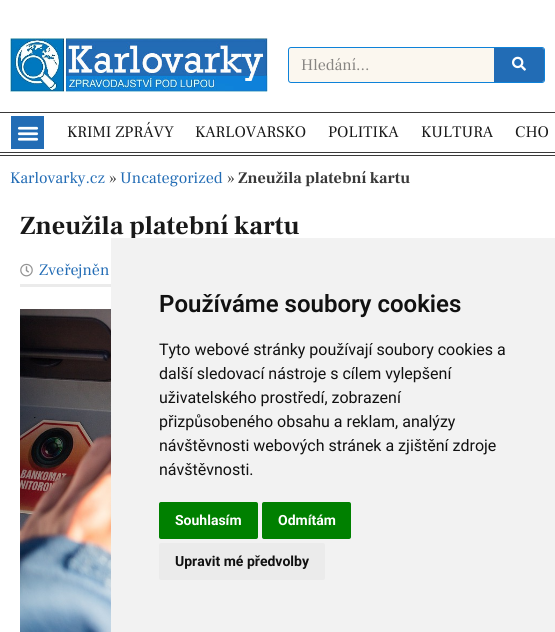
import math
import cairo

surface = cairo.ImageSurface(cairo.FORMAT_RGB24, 555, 632)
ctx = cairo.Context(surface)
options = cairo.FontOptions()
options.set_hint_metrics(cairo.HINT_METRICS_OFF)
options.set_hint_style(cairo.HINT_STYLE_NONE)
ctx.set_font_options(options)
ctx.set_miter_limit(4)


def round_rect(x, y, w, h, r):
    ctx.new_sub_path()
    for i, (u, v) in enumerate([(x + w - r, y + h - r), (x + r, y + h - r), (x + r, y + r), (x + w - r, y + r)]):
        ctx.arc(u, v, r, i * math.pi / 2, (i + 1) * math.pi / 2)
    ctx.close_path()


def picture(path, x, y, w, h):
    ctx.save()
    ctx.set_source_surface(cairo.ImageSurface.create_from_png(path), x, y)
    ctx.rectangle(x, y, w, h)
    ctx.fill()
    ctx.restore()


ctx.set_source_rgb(1, 1, 1)
ctx.paint()
picture("img1.png", 10, 38, 258, 54)
ctx.set_source_rgb(0.984, 0.965, 0.937)
round_rect(288.5, 47.5, 256, 35, 2.5)
ctx.fill_preserve()
ctx.set_source_rgb(0.055, 0.51, 0.851)
ctx.set_line_width(1)
ctx.stroke()
ctx.select_font_face("Frank Ruhl Libre")
ctx.set_font_size(16)
ctx.set_source_rgb(0.529, 0.522, 0.51)
ctx.move_to(301, 70)
ctx.show_text("Hledání...")
ctx.set_source_rgb(0.133, 0.424, 0.71)
ctx.new_path()
ctx.move_to(494, 48)
ctx.line_to(542, 48)
ctx.curve_to(543, 48, 544, 49, 544, 50)
ctx.line_to(544, 80)
ctx.curve_to(544, 81, 543, 82, 542, 82)
ctx.line_to(494, 82)
ctx.close_path()
ctx.fill()
picture("img2.png", 512, 56, 14, 15)
ctx.set_source_rgb(0.224, 0.224, 0.224)
ctx.rectangle(0, 112, 555, 1)
ctx.fill()
ctx.rectangle(0, 152, 555, 1)
ctx.fill()
ctx.rectangle(0, 155, 555, 1)
ctx.fill()
ctx.set_source_rgb(0.133, 0.424, 0.71)
ctx.rectangle(11, 116, 33, 33)
ctx.fill()
picture("img3.png", 17, 126, 22, 15)
ctx.set_source_rgb(0.098, 0.098, 0.098)
ctx.move_to(67, 137)
ctx.show_text("KRIMI ZPRÁVY")
ctx.move_to(195, 137)
ctx.show_text("KARLOVARSKO")
ctx.move_to(328, 137)
ctx.show_text("POLITIKA")
ctx.move_to(421, 137)
ctx.show_text("KULTURA")
ctx.move_to(515, 137)
ctx.show_text("CHO")
ctx.set_source_rgb(0.133, 0.424, 0.71)
ctx.move_to(10, 183)
ctx.show_text("Karlovarky.cz")
ctx.set_source_rgb(0.224, 0.224, 0.224)
ctx.move_to(109, 183)
ctx.show_text("»")
ctx.set_source_rgb(0.133, 0.424, 0.71)
ctx.move_to(120, 183)
ctx.show_text("Uncategorized")
ctx.set_source_rgb(0.224, 0.224, 0.224)
ctx.move_to(227, 183)
ctx.show_text("»")
ctx.select_font_face("Frank Ruhl Libre", cairo.FONT_SLANT_NORMAL, cairo.FONT_WEIGHT_BOLD)
ctx.move_to(238, 183)
ctx.show_text("Zneužila platební kartu")
ctx.set_font_size(26)
ctx.set_source_rgb(0.098, 0.098, 0.098)
ctx.move_to(20, 234)
ctx.show_text("Zneužila platební kartu")
picture("img4.png", 20, 263, 13, 14)
ctx.select_font_face("Frank Ruhl Libre")
ctx.set_font_size(16)
ctx.set_source_rgb(0.133, 0.424, 0.71)
ctx.move_to(39, 275)
ctx.show_text("Zveřejněn")
ctx.set_source_rgb(0.918, 0.918, 0.918)
ctx.rectangle(20, 284, 91, 3)
ctx.fill()
picture("img5.png", 20, 309, 91, 323)
ctx.set_source_rgb(0.949, 0.949, 0.949)
ctx.rectangle(111, 238, 444, 394)
ctx.fill()
ctx.select_font_face("Roboto SemiBold")
ctx.set_font_size(24)
ctx.set_source_rgb(0.067, 0.067, 0.067)
ctx.move_to(159, 312)
ctx.show_text("Používáme soubory cookies")
ctx.select_font_face("Roboto")
ctx.set_font_size(16)
ctx.move_to(159, 355)
ctx.show_text("Tyto webové stránky používají soubory cookies a")
ctx.move_to(159, 379)
ctx.show_text("další sledovací nástroje s cílem vylepšení")
ctx.move_to(159, 403)
ctx.show_text("uživatelského prostředí, zobrazení")
ctx.move_to(159, 427)
ctx.show_text("přizpůsobeného obsahu a reklam, analýzy")
ctx.move_to(159, 451)
ctx.show_text("návštěvnosti webových stránek a zjištění zdroje")
ctx.move_to(159, 475)
ctx.show_text("návštěvnosti.")
ctx.set_source_rgb(0, 0.502, 0)
round_rect(159, 502, 99, 37, 2)
ctx.fill()
ctx.select_font_face("Roboto", cairo.FONT_SLANT_NORMAL, cairo.FONT_WEIGHT_BOLD)
ctx.set_font_size(14)
ctx.set_source_rgb(1, 1, 1)
ctx.move_to(175, 525)
ctx.show_text("Souhlasím")
ctx.set_source_rgb(0, 0.502, 0)
round_rect(262, 502, 89, 37, 2)
ctx.fill()
ctx.set_source_rgb(1, 1, 1)
ctx.move_to(278, 525)
ctx.show_text("Odmítám")
ctx.set_source_rgb(0.918, 0.918, 0.918)
round_rect(159, 543, 166, 37, 2)
ctx.fill()
ctx.set_source_rgb(0.067, 0.067, 0.067)
ctx.move_to(175, 566)
ctx.show_text("Upravit mé předvolby")
surface.write_to_png("page.png")
